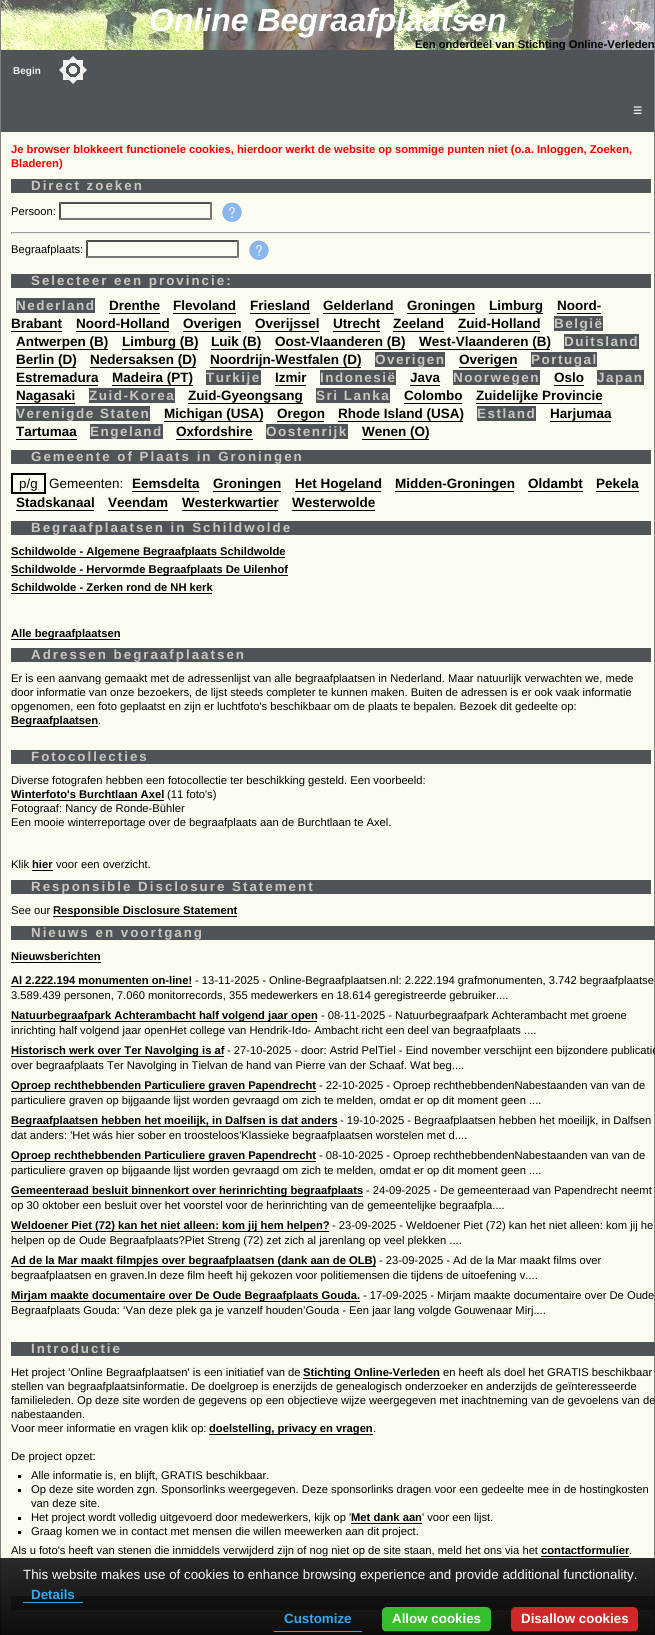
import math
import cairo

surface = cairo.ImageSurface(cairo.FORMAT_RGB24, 655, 1635)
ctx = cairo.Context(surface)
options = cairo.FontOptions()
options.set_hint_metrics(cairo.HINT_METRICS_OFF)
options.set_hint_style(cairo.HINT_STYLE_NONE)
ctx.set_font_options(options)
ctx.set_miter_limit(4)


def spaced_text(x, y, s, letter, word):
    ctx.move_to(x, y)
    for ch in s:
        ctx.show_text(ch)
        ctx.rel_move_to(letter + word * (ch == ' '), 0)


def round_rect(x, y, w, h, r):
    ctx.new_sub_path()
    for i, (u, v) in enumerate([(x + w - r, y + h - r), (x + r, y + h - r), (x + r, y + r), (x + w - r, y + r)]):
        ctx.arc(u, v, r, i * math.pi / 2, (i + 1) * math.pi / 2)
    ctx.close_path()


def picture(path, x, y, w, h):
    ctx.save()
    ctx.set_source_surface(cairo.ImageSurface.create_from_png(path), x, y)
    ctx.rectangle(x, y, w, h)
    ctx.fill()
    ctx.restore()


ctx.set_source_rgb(0.988, 0.984, 0.941)
ctx.paint()
ctx.set_source_rgb(0.502, 0.502, 0.502)
ctx.rectangle(654, 0, 1, 1635)
ctx.fill()
ctx.rectangle(0, 0, 1, 1635)
ctx.fill()
picture("img1.png", 1, 0, 653, 50)
ctx.select_font_face("Liberation Sans", cairo.FONT_SLANT_ITALIC, cairo.FONT_WEIGHT_BOLD)
ctx.set_font_size(32)
ctx.set_source_rgb(1, 1, 1)
ctx.move_to(149, 31)
ctx.show_text("Online Begraafplaatsen")
ctx.select_font_face("Liberation Sans", cairo.FONT_SLANT_NORMAL, cairo.FONT_WEIGHT_BOLD)
ctx.set_font_size(11.2)
ctx.set_source_rgb(0, 0, 0)
ctx.move_to(415, 48)
ctx.show_text("Een onderdeel van Stichting Online-Verleden")
ctx.set_source_rgb(0.306, 0.329, 0.341)
ctx.rectangle(1, 50, 653, 82)
ctx.fill()
ctx.set_font_size(10)
ctx.set_source_rgb(0.949, 0.949, 0.949)
ctx.move_to(13, 74)
ctx.show_text("Begin")
gradient = cairo.RadialGradient(73, 70, 0, 73, 70, 14)
gradient.add_color_stop_rgba(0, 0.306, 0.329, 0.341, 1)
gradient.add_color_stop_rgba(0.5, 0.306, 0.329, 0.341, 1)
gradient.add_color_stop_rgba(0.5, 0.941, 0.941, 0.941, 1)
ctx.set_source(gradient)
ctx.rectangle(63, 60, 20, 20)
ctx.fill()
gradient = cairo.RadialGradient(73, 70, 0, 73, 70, 14)
gradient.add_color_stop_rgba(0.3, 0.941, 0.941, 0.941, 1)
gradient.add_color_stop_rgba(0.31, 0.941, 0.941, 0.941, 0)
gradient.add_color_stop_rgba(0.5, 0.941, 0.941, 0.941, 0)
gradient.add_color_stop_rgba(0.5, 0.941, 0.941, 0.941, 1)
ctx.set_source(gradient)
ctx.new_path()
ctx.move_to(73, 84)
ctx.line_to(59, 70)
ctx.line_to(73, 56)
ctx.line_to(87, 70)
ctx.close_path()
ctx.fill()
ctx.select_font_face("DejaVu Sans", cairo.FONT_SLANT_NORMAL, cairo.FONT_WEIGHT_BOLD)
ctx.set_source_rgb(0.949, 0.949, 0.949)
ctx.move_to(633, 114)
ctx.show_text("☰")
ctx.select_font_face("Liberation Sans", cairo.FONT_SLANT_NORMAL, cairo.FONT_WEIGHT_BOLD)
ctx.set_font_size(11.2)
ctx.set_source_rgb(1, 0, 0)
ctx.move_to(11, 153)
ctx.show_text("Je browser blokkeert functionele cookies, hierdoor werkt de website op sommige punten niet (o.a. Inloggen, Zoeken,")
ctx.move_to(11, 167)
ctx.show_text("Bladeren)")
ctx.set_source_rgb(0.306, 0.329, 0.341)
ctx.rectangle(11, 179, 640, 14)
ctx.fill()
ctx.set_font_size(13.35)
ctx.set_source_rgb(0.796, 0.78, 0.753)
spaced_text(31, 190, "Direct zoeken", 2, 0)
ctx.select_font_face("Liberation Sans")
ctx.set_font_size(11.2)
ctx.set_source_rgb(0, 0, 0)
ctx.move_to(11, 215)
ctx.show_text("Persoon:")
ctx.set_source_rgb(0.31, 0.31, 0.31)
ctx.new_path()
ctx.move_to(59, 202)
ctx.line_to(212, 202)
ctx.line_to(210, 204)
ctx.line_to(61, 204)
ctx.close_path()
ctx.fill()
ctx.set_source_rgb(0.463, 0.463, 0.463)
ctx.new_path()
ctx.move_to(212, 202)
ctx.line_to(212, 220)
ctx.line_to(210, 218)
ctx.line_to(210, 204)
ctx.close_path()
ctx.fill()
ctx.new_path()
ctx.move_to(212, 220)
ctx.line_to(59, 220)
ctx.line_to(61, 218)
ctx.line_to(210, 218)
ctx.close_path()
ctx.fill()
ctx.set_source_rgb(0.31, 0.31, 0.31)
ctx.new_path()
ctx.move_to(59, 220)
ctx.line_to(59, 202)
ctx.line_to(61, 204)
ctx.line_to(61, 218)
ctx.close_path()
ctx.fill()
picture("img2.png", 222, 202, 20, 20)
ctx.set_source_rgb(0.624, 0.624, 0.624)
ctx.rectangle(11, 232, 640, 1)
ctx.fill()
ctx.set_source_rgb(0.933, 0.933, 0.933)
ctx.rectangle(650, 232, 1, 2)
ctx.fill()
ctx.rectangle(11, 233, 640, 1)
ctx.fill()
ctx.set_source_rgb(0.624, 0.624, 0.624)
ctx.rectangle(11, 232, 1, 2)
ctx.fill()
ctx.set_source_rgb(0, 0, 0)
ctx.move_to(11, 253)
ctx.show_text("Begraafplaats:")
ctx.set_source_rgb(0.31, 0.31, 0.31)
ctx.new_path()
ctx.move_to(86, 240)
ctx.line_to(239, 240)
ctx.line_to(237, 242)
ctx.line_to(88, 242)
ctx.close_path()
ctx.fill()
ctx.set_source_rgb(0.463, 0.463, 0.463)
ctx.new_path()
ctx.move_to(239, 240)
ctx.line_to(239, 258)
ctx.line_to(237, 256)
ctx.line_to(237, 242)
ctx.close_path()
ctx.fill()
ctx.new_path()
ctx.move_to(239, 258)
ctx.line_to(86, 258)
ctx.line_to(88, 256)
ctx.line_to(237, 256)
ctx.close_path()
ctx.fill()
ctx.set_source_rgb(0.31, 0.31, 0.31)
ctx.new_path()
ctx.move_to(86, 258)
ctx.line_to(86, 240)
ctx.line_to(88, 242)
ctx.line_to(88, 256)
ctx.close_path()
ctx.fill()
picture("img2.png", 249, 240, 20, 20)
ctx.set_source_rgb(0.306, 0.329, 0.341)
ctx.rectangle(11, 274, 640, 14)
ctx.fill()
ctx.select_font_face("Liberation Sans", cairo.FONT_SLANT_NORMAL, cairo.FONT_WEIGHT_BOLD)
ctx.set_font_size(13.35)
ctx.set_source_rgb(0.796, 0.78, 0.753)
spaced_text(31, 285, "Selecteer een provincie:", 2, 0)
ctx.set_source_rgb(0.306, 0.329, 0.341)
ctx.rectangle(16, 298, 79, 15)
ctx.fill()
ctx.set_font_size(13.5)
ctx.set_source_rgb(0.796, 0.78, 0.753)
spaced_text(16, 310, "Nederland", 1.5, 0)
ctx.set_source_rgb(0, 0, 0)
ctx.move_to(109, 310)
ctx.show_text("Drenthe")
ctx.rectangle(109, 313, 51, 1)
ctx.fill()
ctx.move_to(173, 310)
ctx.show_text("Flevoland")
ctx.rectangle(173, 313, 63, 1)
ctx.fill()
ctx.move_to(250, 310)
ctx.show_text("Friesland")
ctx.rectangle(250, 313, 60, 1)
ctx.fill()
ctx.move_to(323, 310)
ctx.show_text("Gelderland")
ctx.rectangle(323, 313, 71, 1)
ctx.fill()
ctx.move_to(407, 310)
ctx.show_text("Groningen")
ctx.rectangle(407, 313, 68, 1)
ctx.fill()
ctx.move_to(489, 310)
ctx.show_text("Limburg")
ctx.rectangle(489, 313, 54, 1)
ctx.fill()
ctx.move_to(557, 310)
ctx.show_text("Noord-")
ctx.rectangle(557, 313, 44, 1)
ctx.fill()
ctx.move_to(11, 328)
ctx.show_text("Brabant")
ctx.rectangle(11, 331, 51, 1)
ctx.fill()
ctx.move_to(76, 328)
ctx.show_text("Noord-Holland")
ctx.rectangle(76, 331, 93, 1)
ctx.fill()
ctx.move_to(183, 328)
ctx.show_text("Overigen")
ctx.rectangle(183, 331, 58, 1)
ctx.fill()
ctx.move_to(255, 328)
ctx.show_text("Overijssel")
ctx.rectangle(255, 331, 64, 1)
ctx.fill()
ctx.move_to(333, 328)
ctx.show_text("Utrecht")
ctx.rectangle(333, 331, 47, 1)
ctx.fill()
ctx.move_to(393, 328)
ctx.show_text("Zeeland")
ctx.rectangle(393, 331, 51, 1)
ctx.fill()
ctx.move_to(458, 328)
ctx.show_text("Zuid-Holland")
ctx.rectangle(458, 331, 82, 1)
ctx.fill()
ctx.set_source_rgb(0.306, 0.329, 0.341)
ctx.rectangle(554, 316, 49, 15)
ctx.fill()
ctx.set_source_rgb(0.796, 0.78, 0.753)
spaced_text(554, 328, "België", 1.5, 0)
ctx.set_source_rgb(0, 0, 0)
ctx.move_to(16, 346)
ctx.show_text("Antwerpen (B)")
ctx.rectangle(16, 349, 92, 1)
ctx.fill()
ctx.move_to(122, 346)
ctx.show_text("Limburg (B)")
ctx.rectangle(122, 349, 76, 1)
ctx.fill()
ctx.move_to(211, 346)
ctx.show_text("Luik (B)")
ctx.rectangle(211, 349, 50, 1)
ctx.fill()
ctx.move_to(275, 346)
ctx.show_text("Oost-Vlaanderen (B)")
ctx.rectangle(275, 349, 130, 1)
ctx.fill()
ctx.move_to(419, 346)
ctx.show_text("West-Vlaanderen (B)")
ctx.rectangle(419, 349, 131, 1)
ctx.fill()
ctx.set_source_rgb(0.306, 0.329, 0.341)
ctx.rectangle(564, 334, 75, 15)
ctx.fill()
ctx.set_source_rgb(0.796, 0.78, 0.753)
spaced_text(564, 346, "Duitsland", 1.5, 0)
ctx.set_source_rgb(0, 0, 0)
ctx.move_to(16, 364)
ctx.show_text("Berlin (D)")
ctx.rectangle(16, 367, 60, 1)
ctx.fill()
ctx.move_to(90, 364)
ctx.show_text("Nedersaksen (D)")
ctx.rectangle(90, 367, 106, 1)
ctx.fill()
ctx.move_to(210, 364)
ctx.show_text("Noordrijn-Westfalen (D)")
ctx.rectangle(210, 367, 151, 1)
ctx.fill()
ctx.set_source_rgb(0.306, 0.329, 0.341)
ctx.rectangle(375, 352, 70, 15)
ctx.fill()
ctx.set_source_rgb(0.796, 0.78, 0.753)
spaced_text(375, 364, "Overigen", 1.5, 0)
ctx.set_source_rgb(0, 0, 0)
ctx.move_to(459, 364)
ctx.show_text("Overigen")
ctx.rectangle(459, 367, 58, 1)
ctx.fill()
ctx.set_source_rgb(0.306, 0.329, 0.341)
ctx.rectangle(531, 352, 66, 15)
ctx.fill()
ctx.set_source_rgb(0.796, 0.78, 0.753)
spaced_text(531, 364, "Portugal", 1.5, 0)
ctx.set_source_rgb(0, 0, 0)
ctx.move_to(16, 382)
ctx.show_text("Estremadura")
ctx.rectangle(16, 385, 82, 1)
ctx.fill()
ctx.move_to(112, 382)
ctx.show_text("Madeira (PT)")
ctx.rectangle(112, 385, 81, 1)
ctx.fill()
ctx.set_source_rgb(0.306, 0.329, 0.341)
ctx.rectangle(206, 370, 55, 15)
ctx.fill()
ctx.set_source_rgb(0.796, 0.78, 0.753)
spaced_text(206, 382, "Turkije", 1.5, 0)
ctx.set_source_rgb(0, 0, 0)
ctx.move_to(275, 382)
ctx.show_text("Izmir")
ctx.rectangle(275, 385, 31, 1)
ctx.fill()
ctx.set_source_rgb(0.306, 0.329, 0.341)
ctx.rectangle(320, 370, 76, 15)
ctx.fill()
ctx.set_source_rgb(0.796, 0.78, 0.753)
spaced_text(320, 382, "Indonesië", 1.5, 0)
ctx.set_source_rgb(0, 0, 0)
ctx.move_to(410, 382)
ctx.show_text("Java")
ctx.rectangle(410, 385, 30, 1)
ctx.fill()
ctx.set_source_rgb(0.306, 0.329, 0.341)
ctx.rectangle(453, 370, 87, 15)
ctx.fill()
ctx.set_source_rgb(0.796, 0.78, 0.753)
spaced_text(453, 382, "Noorwegen", 1.5, 0)
ctx.set_source_rgb(0, 0, 0)
ctx.move_to(554, 382)
ctx.show_text("Oslo")
ctx.rectangle(554, 385, 30, 1)
ctx.fill()
ctx.set_source_rgb(0.306, 0.329, 0.341)
ctx.rectangle(597, 370, 47, 15)
ctx.fill()
ctx.set_source_rgb(0.796, 0.78, 0.753)
spaced_text(597, 382, "Japan", 1.5, 0)
ctx.set_source_rgb(0, 0, 0)
ctx.move_to(16, 400)
ctx.show_text("Nagasaki")
ctx.rectangle(16, 403, 59, 1)
ctx.fill()
ctx.set_source_rgb(0.306, 0.329, 0.341)
ctx.rectangle(89, 388, 86, 15)
ctx.fill()
ctx.set_source_rgb(0.796, 0.78, 0.753)
spaced_text(89, 400, "Zuid-Korea", 1.5, 0)
ctx.set_source_rgb(0, 0, 0)
ctx.move_to(188, 400)
ctx.show_text("Zuid-Gyeongsang")
ctx.rectangle(188, 403, 115, 1)
ctx.fill()
ctx.set_source_rgb(0.306, 0.329, 0.341)
ctx.rectangle(316, 388, 74, 15)
ctx.fill()
ctx.set_source_rgb(0.796, 0.78, 0.753)
spaced_text(316, 400, "Sri Lanka", 1.5, 0)
ctx.set_source_rgb(0, 0, 0)
ctx.move_to(404, 400)
ctx.show_text("Colombo")
ctx.rectangle(404, 403, 58, 1)
ctx.fill()
ctx.move_to(476, 400)
ctx.show_text("Zuidelijke Provincie")
ctx.rectangle(476, 403, 126, 1)
ctx.fill()
ctx.set_source_rgb(0.306, 0.329, 0.341)
ctx.rectangle(16, 406, 134, 15)
ctx.fill()
ctx.set_source_rgb(0.796, 0.78, 0.753)
spaced_text(16, 418, "Verenigde Staten", 1.5, 0)
ctx.set_source_rgb(0, 0, 0)
ctx.move_to(164, 418)
ctx.show_text("Michigan (USA)")
ctx.rectangle(164, 421, 99, 1)
ctx.fill()
ctx.move_to(277, 418)
ctx.show_text("Oregon")
ctx.rectangle(277, 421, 47, 1)
ctx.fill()
ctx.move_to(338, 418)
ctx.show_text("Rhode Island (USA)")
ctx.rectangle(338, 421, 125, 1)
ctx.fill()
ctx.set_source_rgb(0.306, 0.329, 0.341)
ctx.rectangle(477, 406, 59, 15)
ctx.fill()
ctx.set_source_rgb(0.796, 0.78, 0.753)
spaced_text(477, 418, "Estland", 1.5, 0)
ctx.set_source_rgb(0, 0, 0)
ctx.move_to(550, 418)
ctx.show_text("Harjumaa")
ctx.rectangle(550, 421, 61, 1)
ctx.fill()
ctx.move_to(16, 436)
ctx.show_text("Tartumaa")
ctx.rectangle(16, 439, 61, 1)
ctx.fill()
ctx.set_source_rgb(0.306, 0.329, 0.341)
ctx.rectangle(90, 424, 73, 15)
ctx.fill()
ctx.set_source_rgb(0.796, 0.78, 0.753)
spaced_text(90, 436, "Engeland", 1.5, 0)
ctx.set_source_rgb(0, 0, 0)
ctx.move_to(176, 436)
ctx.show_text("Oxfordshire")
ctx.rectangle(176, 439, 77, 1)
ctx.fill()
ctx.set_source_rgb(0.306, 0.329, 0.341)
ctx.rectangle(266, 424, 82, 15)
ctx.fill()
ctx.set_source_rgb(0.796, 0.78, 0.753)
spaced_text(266, 436, "Oostenrijk", 1.5, 0)
ctx.set_source_rgb(0, 0, 0)
ctx.move_to(362, 436)
ctx.show_text("Wenen (O)")
ctx.rectangle(362, 439, 67, 1)
ctx.fill()
ctx.set_source_rgb(0.306, 0.329, 0.341)
ctx.rectangle(11, 450, 640, 14)
ctx.fill()
ctx.set_font_size(13.35)
ctx.set_source_rgb(0.796, 0.78, 0.753)
spaced_text(31, 461, "Gemeente of Plaats in Groningen", 2, 0)
ctx.rectangle(12, 474, 33, 19)
ctx.set_source_rgb(0, 0, 0)
ctx.stroke()
ctx.select_font_face("Liberation Sans")
ctx.move_to(19, 488)
ctx.show_text("p/g")
ctx.set_font_size(13.5)
ctx.move_to(49, 488)
ctx.show_text("Gemeenten:")
ctx.select_font_face("Liberation Sans", cairo.FONT_SLANT_NORMAL, cairo.FONT_WEIGHT_BOLD)
ctx.move_to(132, 488)
ctx.show_text("Eemsdelta")
ctx.rectangle(132, 491, 67, 1)
ctx.fill()
ctx.move_to(213, 488)
ctx.show_text("Groningen")
ctx.rectangle(213, 491, 68, 1)
ctx.fill()
ctx.move_to(295, 488)
ctx.show_text("Het Hogeland")
ctx.rectangle(295, 491, 86, 1)
ctx.fill()
ctx.move_to(395, 488)
ctx.show_text("Midden-Groningen")
ctx.rectangle(395, 491, 119, 1)
ctx.fill()
ctx.move_to(528, 488)
ctx.show_text("Oldambt")
ctx.rectangle(528, 491, 55, 1)
ctx.fill()
ctx.move_to(596, 488)
ctx.show_text("Pekela")
ctx.rectangle(596, 491, 43, 1)
ctx.fill()
ctx.move_to(16, 507)
ctx.show_text("Stadskanaal")
ctx.rectangle(16, 510, 78, 1)
ctx.fill()
ctx.move_to(108, 507)
ctx.show_text("Veendam")
ctx.rectangle(108, 510, 60, 1)
ctx.fill()
ctx.move_to(182, 507)
ctx.show_text("Westerkwartier")
ctx.rectangle(182, 510, 96, 1)
ctx.fill()
ctx.move_to(292, 507)
ctx.show_text("Westerwolde")
ctx.rectangle(292, 510, 83, 1)
ctx.fill()
ctx.set_source_rgb(0.306, 0.329, 0.341)
ctx.rectangle(11, 521, 640, 14)
ctx.fill()
ctx.set_font_size(13.35)
ctx.set_source_rgb(0.796, 0.78, 0.753)
spaced_text(31, 532, "Begraafplaatsen in Schildwolde", 2, 0)
ctx.set_source_rgb(0, 0, 0)
ctx.rectangle(11, 557, 274, 1)
ctx.fill()
ctx.set_font_size(11.2)
ctx.move_to(11, 555)
ctx.show_text("Schildwolde - Algemene Begraafplaats Schildwolde")
ctx.rectangle(11, 575, 277, 1)
ctx.fill()
ctx.move_to(11, 573)
ctx.show_text("Schildwolde - Hervormde Begraafplaats De Uilenhof")
ctx.move_to(11, 591)
ctx.show_text("Schildwolde - Zerken rond de NH kerk")
ctx.rectangle(11, 593, 201, 1)
ctx.fill()
ctx.rectangle(11, 639, 109, 1)
ctx.fill()
ctx.move_to(11, 637)
ctx.show_text("Alle begraafplaatsen")
ctx.set_source_rgb(0.306, 0.329, 0.341)
ctx.rectangle(11, 648, 640, 14)
ctx.fill()
ctx.set_font_size(13.35)
ctx.set_source_rgb(0.796, 0.78, 0.753)
spaced_text(31, 659, "Adressen begraafplaatsen", 2, 0)
ctx.select_font_face("Liberation Sans")
ctx.set_font_size(11.2)
ctx.set_source_rgb(0, 0, 0)
ctx.move_to(11, 682)
ctx.show_text("Er is een aanvang gemaakt met de adressenlijst van alle begraafplaatsen in Nederland. Maar natuurlijk verwachten we, mede")
ctx.move_to(11, 696)
ctx.show_text("door informatie van onze bezoekers, de lijst steeds completer te kunnen maken. Buiten de adressen is er ook vaak informatie")
ctx.move_to(11, 710)
ctx.show_text("opgenomen, een foto geplaatst en zijn er luchtfoto's beschikbaar om de plaats te bepalen. Bezoek dit gedeelte op:")
ctx.rectangle(11, 726, 87, 1)
ctx.fill()
ctx.select_font_face("Liberation Sans", cairo.FONT_SLANT_NORMAL, cairo.FONT_WEIGHT_BOLD)
ctx.move_to(11, 724)
ctx.show_text("Begraafplaatsen")
ctx.select_font_face("Liberation Sans")
ctx.move_to(98, 724)
ctx.show_text(".")
ctx.set_source_rgb(0.306, 0.329, 0.341)
ctx.rectangle(11, 750, 640, 14)
ctx.fill()
ctx.select_font_face("Liberation Sans", cairo.FONT_SLANT_NORMAL, cairo.FONT_WEIGHT_BOLD)
ctx.set_font_size(13.35)
ctx.set_source_rgb(0.796, 0.78, 0.753)
spaced_text(31, 761, "Fotocollecties", 2, 0)
ctx.select_font_face("Liberation Sans")
ctx.set_font_size(11.2)
ctx.set_source_rgb(0, 0, 0)
ctx.move_to(11, 784)
ctx.show_text("Diverse fotografen hebben een fotocollectie ter beschikking gesteld. Een voorbeeld:")
ctx.select_font_face("Liberation Sans", cairo.FONT_SLANT_NORMAL, cairo.FONT_WEIGHT_BOLD)
ctx.move_to(11, 798)
ctx.show_text("Winterfoto's Burchtlaan Axel")
ctx.rectangle(11, 800, 153, 1)
ctx.fill()
ctx.select_font_face("Liberation Sans")
ctx.move_to(167, 798)
ctx.show_text("(11 foto's)")
ctx.move_to(11, 812)
ctx.show_text("Fotograaf: Nancy de Ronde-Bühler")
ctx.move_to(11, 826)
ctx.show_text("Een mooie winterreportage over de begraafplaats aan de Burchtlaan te Axel.")
ctx.move_to(11, 868)
ctx.show_text("Klik")
ctx.select_font_face("Liberation Sans", cairo.FONT_SLANT_NORMAL, cairo.FONT_WEIGHT_BOLD)
ctx.move_to(32, 868)
ctx.show_text("hier")
ctx.rectangle(32, 870, 21, 1)
ctx.fill()
ctx.select_font_face("Liberation Sans")
ctx.move_to(56, 868)
ctx.show_text("voor een overzicht.")
ctx.set_source_rgb(0.306, 0.329, 0.341)
ctx.rectangle(11, 880, 640, 14)
ctx.fill()
ctx.select_font_face("Liberation Sans", cairo.FONT_SLANT_NORMAL, cairo.FONT_WEIGHT_BOLD)
ctx.set_font_size(13.35)
ctx.set_source_rgb(0.796, 0.78, 0.753)
spaced_text(31, 891, "Responsible Disclosure Statement", 2, 0)
ctx.select_font_face("Liberation Sans")
ctx.set_font_size(11.2)
ctx.set_source_rgb(0, 0, 0)
ctx.move_to(11, 914)
ctx.show_text("See our")
ctx.rectangle(53, 916, 184, 1)
ctx.fill()
ctx.select_font_face("Liberation Sans", cairo.FONT_SLANT_NORMAL, cairo.FONT_WEIGHT_BOLD)
ctx.move_to(53, 914)
ctx.show_text("Responsible Disclosure Statement")
ctx.set_source_rgb(0.306, 0.329, 0.341)
ctx.rectangle(11, 926, 644, 14)
ctx.fill()
ctx.set_font_size(13.35)
ctx.set_source_rgb(0.796, 0.78, 0.753)
spaced_text(31, 937, "Nieuws en voortgang", 2, 0)
ctx.set_font_size(11.2)
ctx.set_source_rgb(0, 0, 0)
ctx.move_to(11, 960)
ctx.show_text("Nieuwsberichten")
ctx.rectangle(11, 962, 90, 1)
ctx.fill()
ctx.move_to(11, 984)
ctx.show_text("Al 2.222.194 monumenten on-line!")
ctx.rectangle(11, 986, 181, 1)
ctx.fill()
ctx.select_font_face("Liberation Sans")
ctx.move_to(195, 984)
ctx.show_text("- 13-11-2025 - Online-Begraafplaatsen.nl: 2.222.194 grafmonumenten, 3.742 begraafplaatse")
ctx.move_to(11, 999)
ctx.show_text("3.589.439 personen, 7.060 monitorrecords, 355 medewerkers en 18.614 geregistreerde gebruiker....")
ctx.rectangle(11, 1021, 306, 1)
ctx.fill()
ctx.select_font_face("Liberation Sans", cairo.FONT_SLANT_NORMAL, cairo.FONT_WEIGHT_BOLD)
ctx.move_to(11, 1019)
ctx.show_text("Natuurbegraafpark Achterambacht half volgend jaar open")
ctx.select_font_face("Liberation Sans")
ctx.move_to(321, 1019)
ctx.show_text("- 08-11-2025 - Natuurbegraafpark Achterambacht met groene")
ctx.move_to(11, 1034)
ctx.show_text("inrichting half volgend jaar openHet college van Hendrik-Ido- Ambacht richt een deel van begraafplaats ....")
ctx.rectangle(11, 1056, 213, 1)
ctx.fill()
ctx.select_font_face("Liberation Sans", cairo.FONT_SLANT_NORMAL, cairo.FONT_WEIGHT_BOLD)
ctx.move_to(11, 1054)
ctx.show_text("Historisch werk over Ter Navolging is af")
ctx.select_font_face("Liberation Sans")
ctx.move_to(227, 1054)
ctx.show_text("- 27-10-2025 - door: Astrid PelTiel - Eind november verschijnt een bijzondere publicatie")
ctx.move_to(11, 1069)
ctx.show_text("over begraafplaats Ter Navolging in Tielvan de hand van Pierre van der Schaaf. Wat beg....")
ctx.rectangle(11, 1091, 305, 1)
ctx.fill()
ctx.select_font_face("Liberation Sans", cairo.FONT_SLANT_NORMAL, cairo.FONT_WEIGHT_BOLD)
ctx.move_to(11, 1089)
ctx.show_text("Oproep rechthebbenden Particuliere graven Papendrecht")
ctx.select_font_face("Liberation Sans")
ctx.move_to(319, 1089)
ctx.show_text("- 22-10-2025 - Oproep rechthebbendenNabestaanden van van de")
ctx.move_to(11, 1104)
ctx.show_text("particuliere graven op bijgaande lijst worden gevraagd om zich te melden, omdat er op dit moment geen ....")
ctx.rectangle(11, 1126, 326, 1)
ctx.fill()
ctx.select_font_face("Liberation Sans", cairo.FONT_SLANT_NORMAL, cairo.FONT_WEIGHT_BOLD)
ctx.move_to(11, 1124)
ctx.show_text("Begraafplaatsen hebben het moeilijk, in Dalfsen is dat anders")
ctx.select_font_face("Liberation Sans")
ctx.move_to(340, 1124)
ctx.show_text("- 19-10-2025 - Begraafplaatsen hebben het moeilijk, in Dalfsen")
ctx.move_to(11, 1139)
ctx.show_text("dat anders: 'Het wás hier sober en troosteloos'Klassieke begraafplaatsen worstelen met d....")
ctx.rectangle(11, 1161, 305, 1)
ctx.fill()
ctx.select_font_face("Liberation Sans", cairo.FONT_SLANT_NORMAL, cairo.FONT_WEIGHT_BOLD)
ctx.move_to(11, 1159)
ctx.show_text("Oproep rechthebbenden Particuliere graven Papendrecht")
ctx.select_font_face("Liberation Sans")
ctx.move_to(319, 1159)
ctx.show_text("- 08-10-2025 - Oproep rechthebbendenNabestaanden van van de")
ctx.move_to(11, 1174)
ctx.show_text("particuliere graven op bijgaande lijst worden gevraagd om zich te melden, omdat er op dit moment geen ....")
ctx.rectangle(11, 1196, 352, 1)
ctx.fill()
ctx.select_font_face("Liberation Sans", cairo.FONT_SLANT_NORMAL, cairo.FONT_WEIGHT_BOLD)
ctx.move_to(11, 1194)
ctx.show_text("Gemeenteraad besluit binnenkort over herinrichting begraafplaats")
ctx.select_font_face("Liberation Sans")
ctx.move_to(366, 1194)
ctx.show_text("- 24-09-2025 - De gemeenteraad van Papendrecht neemt")
ctx.move_to(11, 1209)
ctx.show_text("op 30 oktober een besluit over het voorstel voor de herinrichting van de gemeentelijke begraafpla....")
ctx.rectangle(11, 1231, 318, 1)
ctx.fill()
ctx.select_font_face("Liberation Sans", cairo.FONT_SLANT_NORMAL, cairo.FONT_WEIGHT_BOLD)
ctx.move_to(11, 1229)
ctx.show_text("Weldoener Piet (72) kan het niet alleen: kom jij hem helpen?")
ctx.select_font_face("Liberation Sans")
ctx.move_to(332, 1229)
ctx.show_text("- 23-09-2025 - Weldoener Piet (72) kan het niet alleen: kom jij he")
ctx.move_to(11, 1244)
ctx.show_text("helpen op de Oude Begraafplaats?Piet Streng (72) zet zich al jarenlang op veel plekken ....")
ctx.rectangle(11, 1266, 365, 1)
ctx.fill()
ctx.select_font_face("Liberation Sans", cairo.FONT_SLANT_NORMAL, cairo.FONT_WEIGHT_BOLD)
ctx.move_to(11, 1264)
ctx.show_text("Ad de la Mar maakt filmpjes over begraafplaatsen (dank aan de OLB)")
ctx.select_font_face("Liberation Sans")
ctx.move_to(379, 1264)
ctx.show_text("- 23-09-2025 - Ad de la Mar maakt films over")
ctx.move_to(11, 1279)
ctx.show_text("begraafplaatsen en graven.In deze film heeft hij gekozen voor politiemensen die tijdens de uitoefening v....")
ctx.rectangle(11, 1301, 349, 1)
ctx.fill()
ctx.select_font_face("Liberation Sans", cairo.FONT_SLANT_NORMAL, cairo.FONT_WEIGHT_BOLD)
ctx.move_to(11, 1299)
ctx.show_text("Mirjam maakte documentaire over De Oude Begraafplaats Gouda.")
ctx.select_font_face("Liberation Sans")
ctx.move_to(363, 1299)
ctx.show_text("- 17-09-2025 - Mirjam maakte documentaire over De Oude")
ctx.move_to(11, 1314)
ctx.show_text("Begraafplaats Gouda: ‘Van deze plek ga je vanzelf houden’Gouda - Een jaar lang volgde Gouwenaar Mirj....")
ctx.set_source_rgb(0.306, 0.329, 0.341)
ctx.rectangle(11, 1342, 644, 14)
ctx.fill()
ctx.select_font_face("Liberation Sans", cairo.FONT_SLANT_NORMAL, cairo.FONT_WEIGHT_BOLD)
ctx.set_font_size(13.35)
ctx.set_source_rgb(0.796, 0.78, 0.753)
spaced_text(31, 1353, "Introductie", 2, 0)
ctx.select_font_face("Liberation Sans")
ctx.set_font_size(11.2)
ctx.set_source_rgb(0, 0, 0)
ctx.move_to(11, 1376)
ctx.show_text("Het project 'Online Begraafplaatsen' is een initiatief van de")
ctx.rectangle(303, 1378, 137, 1)
ctx.fill()
ctx.select_font_face("Liberation Sans", cairo.FONT_SLANT_NORMAL, cairo.FONT_WEIGHT_BOLD)
ctx.move_to(303, 1376)
ctx.show_text("Stichting Online-Verleden")
ctx.select_font_face("Liberation Sans")
ctx.move_to(443, 1376)
ctx.show_text("en heeft als doel het GRATIS beschikbaar")
ctx.move_to(11, 1390)
ctx.show_text("stellen van begraafplaatsinformatie. De doelgroep is enerzijds de genealogisch onderzoeker en anderzijds de geïnteresseerde")
ctx.move_to(11, 1404)
ctx.show_text("familieleden. Op deze site worden de gegevens op een objectieve wijze weergegeven met inachtneming van de gevoelens van de")
ctx.move_to(11, 1418)
ctx.show_text("nabestaanden.")
ctx.move_to(11, 1432)
ctx.show_text("Voor meer informatie en vragen klik op:")
ctx.rectangle(209, 1434, 164, 1)
ctx.fill()
ctx.select_font_face("Liberation Sans", cairo.FONT_SLANT_NORMAL, cairo.FONT_WEIGHT_BOLD)
ctx.move_to(209, 1432)
ctx.show_text("doelstelling, privacy en vragen")
ctx.select_font_face("Liberation Sans")
ctx.move_to(373, 1432)
ctx.show_text(".")
ctx.move_to(11, 1460)
ctx.show_text("De project opzet:")
ctx.rectangle(18, 1475, 3, 3)
ctx.fill()
ctx.move_to(31, 1479)
ctx.show_text("Alle informatie is, en blijft, GRATIS beschikbaar.")
ctx.rectangle(18, 1489, 3, 3)
ctx.fill()
ctx.move_to(31, 1493)
ctx.show_text("Op deze site worden zgn. Sponsorlinks weergegeven. Deze sponsorlinks dragen voor een gedeelte mee in de hostingkosten")
ctx.move_to(31, 1507)
ctx.show_text("van deze site.")
ctx.rectangle(18, 1517, 3, 3)
ctx.fill()
ctx.move_to(31, 1521)
ctx.show_text("Het project wordt volledig uitgevoerd door medewerkers, kijk op '")
ctx.select_font_face("Liberation Sans", cairo.FONT_SLANT_NORMAL, cairo.FONT_WEIGHT_BOLD)
ctx.move_to(351, 1521)
ctx.show_text("Met dank aan")
ctx.rectangle(351, 1523, 71, 1)
ctx.fill()
ctx.select_font_face("Liberation Sans")
ctx.move_to(422, 1521)
ctx.show_text("' voor een lijst.")
ctx.rectangle(18, 1531, 3, 3)
ctx.fill()
ctx.move_to(31, 1535)
ctx.show_text("Graag komen we in contact met mensen die willen meewerken aan dit project.")
ctx.move_to(11, 1554)
ctx.show_text("Als u foto's heeft van stenen die inmiddels verwijderd zijn of nog niet op de site staan, meld het ons via het")
ctx.select_font_face("Liberation Sans", cairo.FONT_SLANT_NORMAL, cairo.FONT_WEIGHT_BOLD)
ctx.move_to(541, 1554)
ctx.show_text("contactformulier")
ctx.rectangle(541, 1556, 88, 1)
ctx.fill()
ctx.select_font_face("Liberation Sans")
ctx.move_to(629, 1554)
ctx.show_text(".")
ctx.set_source_rgb(0.306, 0.329, 0.341)
ctx.rectangle(11, 1596, 644, 14)
ctx.fill()
gradient = cairo.LinearGradient(331, 1558, 331, 1635)
gradient.add_color_stop_rgba(0, 0.118, 0.118, 0.118, 0.95)
gradient.add_color_stop_rgba(1, 0, 0, 0, 0.95)
ctx.set_source(gradient)
ctx.rectangle(0, 1558, 655, 77)
ctx.fill()
ctx.set_font_size(13.35)
ctx.set_source_rgb(1, 1, 1)
ctx.move_to(23, 1579)
ctx.show_text("This website makes use of cookies to enhance browsing experience and provide additional functionality.")
ctx.select_font_face("Liberation Sans", cairo.FONT_SLANT_NORMAL, cairo.FONT_WEIGHT_BOLD)
ctx.set_source_rgb(0.192, 0.659, 0.941)
ctx.move_to(31, 1599)
ctx.show_text("Details")
ctx.rectangle(23, 1602, 60, 1)
ctx.fill()
ctx.rectangle(274, 1631, 88, 1)
ctx.fill()
ctx.move_to(284, 1623)
ctx.show_text("Customize")
ctx.set_source_rgb(0.212, 0.749, 0.176)
round_rect(382, 1607, 109, 25, 5)
ctx.fill()
ctx.set_source_rgb(0.133, 0.133, 0.133)
ctx.rectangle(385, 1631, 104, 1)
ctx.fill()
ctx.set_source_rgb(1, 1, 1)
ctx.move_to(392, 1623)
ctx.show_text("Allow cookies")
ctx.set_source_rgb(0.816, 0.157, 0.157)
round_rect(511, 1607, 127, 25, 5)
ctx.fill()
ctx.set_source_rgb(0.133, 0.133, 0.133)
ctx.rectangle(514, 1631, 122, 1)
ctx.fill()
ctx.set_source_rgb(1, 1, 1)
ctx.move_to(521, 1623)
ctx.show_text("Disallow cookies")
surface.write_to_png("page.png")
